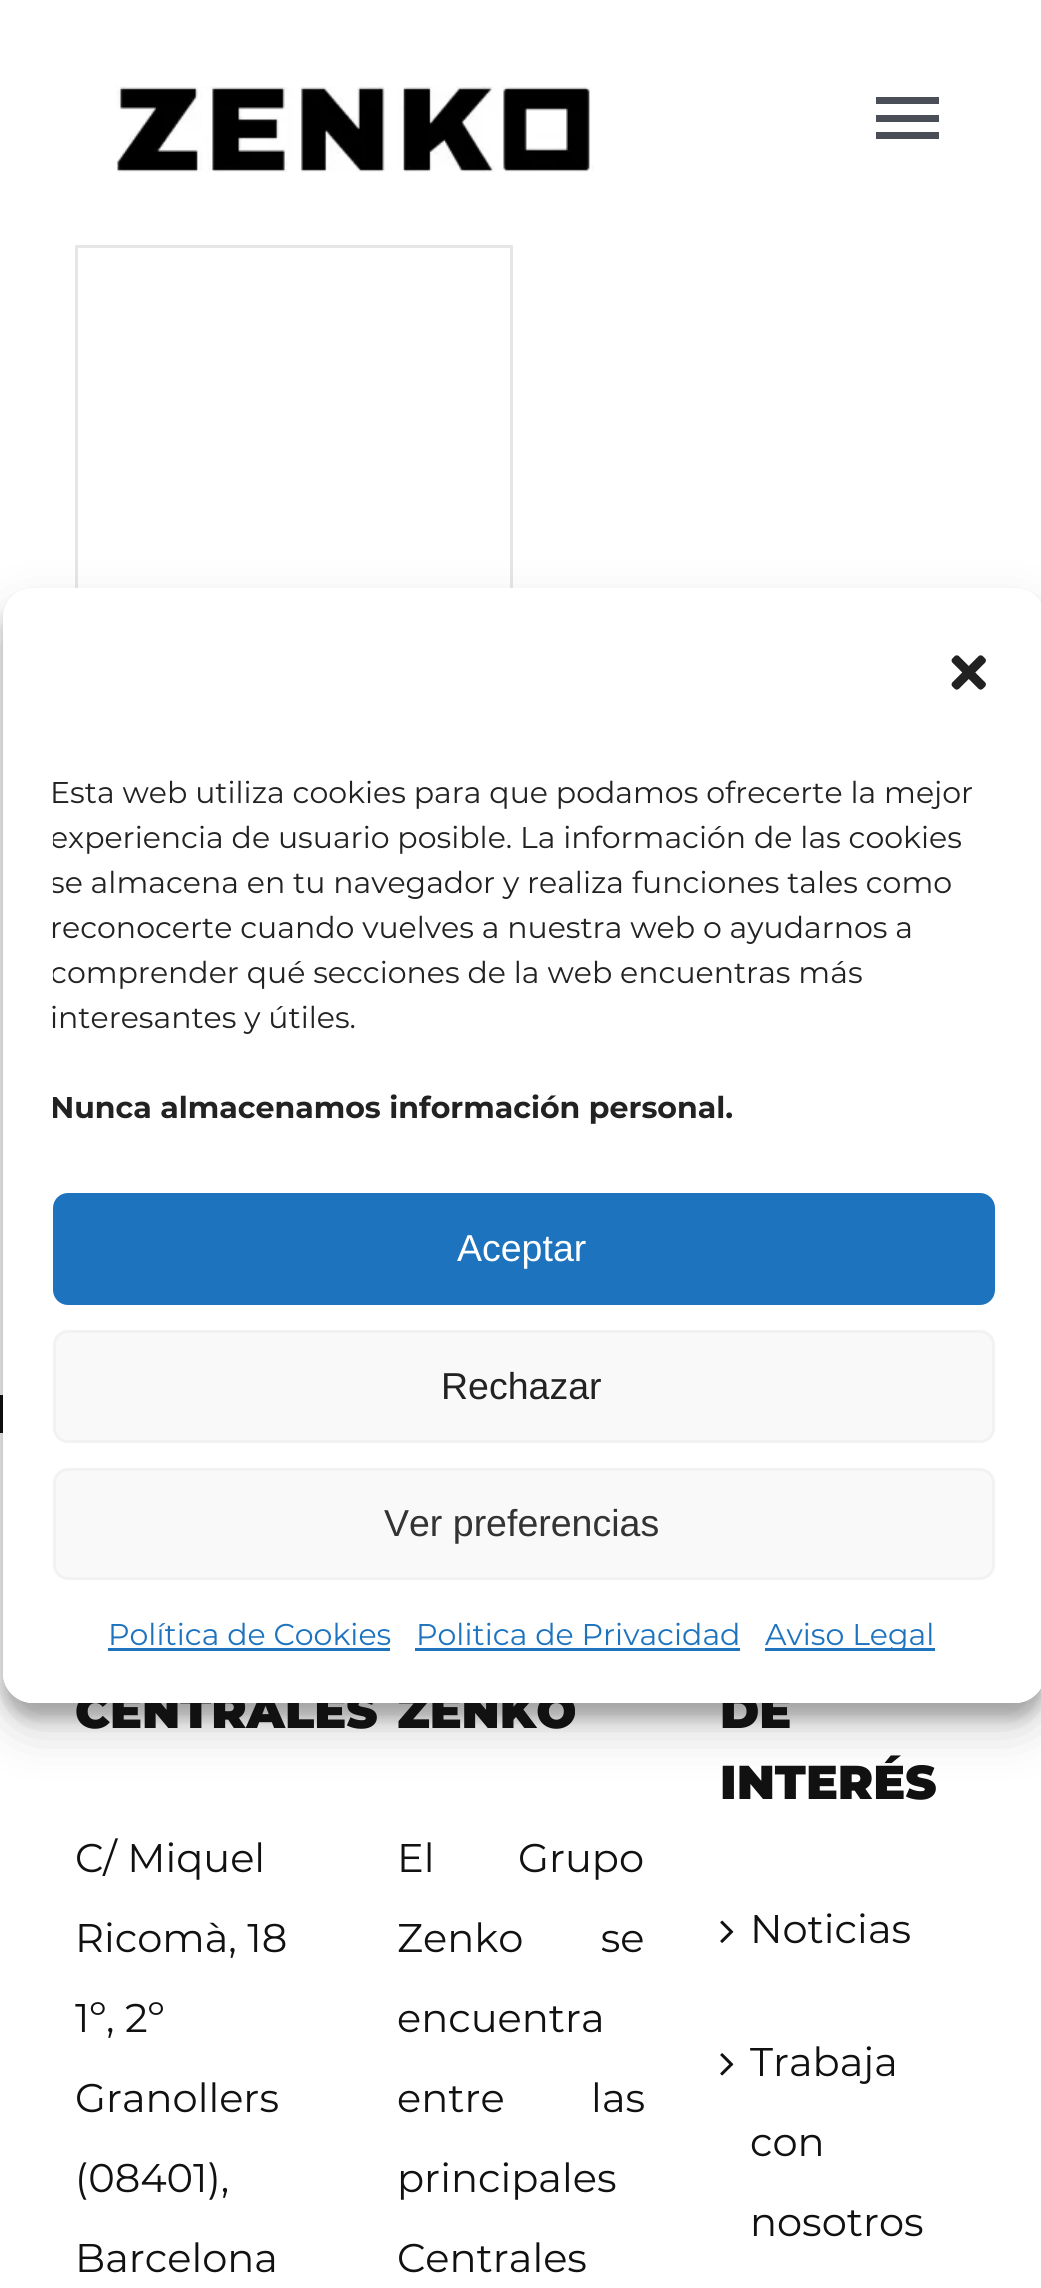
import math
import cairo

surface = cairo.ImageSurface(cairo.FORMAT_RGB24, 1041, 2288)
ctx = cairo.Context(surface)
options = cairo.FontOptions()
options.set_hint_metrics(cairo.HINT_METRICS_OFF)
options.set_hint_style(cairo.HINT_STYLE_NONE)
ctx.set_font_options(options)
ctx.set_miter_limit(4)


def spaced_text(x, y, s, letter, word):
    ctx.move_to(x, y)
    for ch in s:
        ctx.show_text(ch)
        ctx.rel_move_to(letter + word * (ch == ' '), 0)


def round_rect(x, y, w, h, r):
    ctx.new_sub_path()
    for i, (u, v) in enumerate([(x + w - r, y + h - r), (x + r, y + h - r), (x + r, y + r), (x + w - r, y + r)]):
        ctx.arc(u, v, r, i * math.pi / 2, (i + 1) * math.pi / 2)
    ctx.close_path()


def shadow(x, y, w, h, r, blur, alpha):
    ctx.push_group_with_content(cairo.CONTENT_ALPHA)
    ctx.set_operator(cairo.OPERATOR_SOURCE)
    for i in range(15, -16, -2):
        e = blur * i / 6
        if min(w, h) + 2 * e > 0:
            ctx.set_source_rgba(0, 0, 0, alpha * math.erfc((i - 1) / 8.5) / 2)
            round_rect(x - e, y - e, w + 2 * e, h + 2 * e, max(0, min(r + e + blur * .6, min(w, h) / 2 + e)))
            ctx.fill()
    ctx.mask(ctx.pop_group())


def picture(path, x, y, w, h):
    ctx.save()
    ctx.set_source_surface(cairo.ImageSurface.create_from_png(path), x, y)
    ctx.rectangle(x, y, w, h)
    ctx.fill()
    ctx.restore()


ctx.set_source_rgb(1, 1, 1)
ctx.paint()
ctx.set_source_rgb(0.902, 0.902, 0.902)
ctx.rectangle(75, 245, 438, 3)
ctx.fill()
ctx.rectangle(510, 245, 3, 343)
ctx.fill()
ctx.rectangle(75, 245, 3, 343)
ctx.fill()
ctx.set_source_rgb(0.067, 0.067, 0.067)
ctx.rectangle(0, 1395, 3, 38)
ctx.fill()
ctx.save()
ctx.set_fill_rule(cairo.FILL_RULE_EVEN_ODD)
ctx.new_path()
ctx.move_to(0, 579)
ctx.line_to(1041, 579)
ctx.line_to(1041, 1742)
ctx.line_to(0, 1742)
ctx.close_path()
ctx.move_to(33, 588)
ctx.line_to(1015, 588)
ctx.curve_to(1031.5, 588, 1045, 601.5, 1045, 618)
ctx.line_to(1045, 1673)
ctx.curve_to(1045, 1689.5, 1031.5, 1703, 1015, 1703)
ctx.line_to(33, 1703)
ctx.curve_to(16.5, 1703, 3, 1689.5, 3, 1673)
ctx.line_to(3, 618)
ctx.curve_to(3, 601.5, 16.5, 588, 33, 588)
ctx.close_path()
ctx.clip()
ctx.set_source_rgb(0, 0, 0)
shadow(3, 603, 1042, 1115, 30, 7.5, 0.23)
ctx.restore()
ctx.save()
ctx.set_fill_rule(cairo.FILL_RULE_EVEN_ODD)
ctx.new_path()
ctx.move_to(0, 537)
ctx.line_to(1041, 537)
ctx.line_to(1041, 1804)
ctx.line_to(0, 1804)
ctx.close_path()
ctx.move_to(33, 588)
ctx.line_to(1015, 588)
ctx.curve_to(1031.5, 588, 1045, 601.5, 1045, 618)
ctx.line_to(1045, 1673)
ctx.curve_to(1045, 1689.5, 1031.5, 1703, 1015, 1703)
ctx.line_to(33, 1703)
ctx.curve_to(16.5, 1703, 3, 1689.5, 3, 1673)
ctx.line_to(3, 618)
ctx.curve_to(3, 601.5, 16.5, 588, 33, 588)
ctx.close_path()
ctx.clip()
ctx.set_source_rgb(0, 0, 0)
shadow(3, 613, 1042, 1115, 30, 25, 0.19)
ctx.restore()
ctx.select_font_face("Montserrat Black")
ctx.set_font_size(47.5)
ctx.move_to(75, 1728)
ctx.show_text("CENTRALES")
ctx.move_to(397, 1728)
ctx.show_text("ZENKO")
ctx.move_to(720, 1728)
ctx.show_text("DE")
ctx.set_source_rgb(1, 1, 1)
round_rect(3, 588, 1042, 1115, 30)
ctx.fill()
picture("img1.png", 951, 655, 35, 35)
ctx.select_font_face("Montserrat")
ctx.set_font_size(30)
ctx.set_source_rgb(0.133, 0.133, 0.133)
ctx.move_to(50, 803)
ctx.show_text("Esta web utiliza cookies para que podamos ofrecerte la mejor")
ctx.save()
ctx.rectangle(53, 770, 942, 373)
ctx.clip()
ctx.move_to(50, 848)
ctx.show_text("experiencia de usuario posible. La información de las cookies")
ctx.move_to(50, 893)
ctx.show_text("se almacena en tu navegador y realiza funciones tales como")
ctx.restore()
ctx.move_to(50, 938)
ctx.show_text("reconocerte cuando vuelves a nuestra web o ayudarnos a")
ctx.save()
ctx.rectangle(53, 770, 942, 373)
ctx.clip()
ctx.move_to(50, 983)
ctx.show_text("comprender qué secciones de la web encuentras más")
ctx.restore()
ctx.move_to(50, 1028)
ctx.show_text("interesantes y útiles.")
ctx.save()
ctx.rectangle(53, 770, 942, 373)
ctx.clip()
ctx.select_font_face("Montserrat", cairo.FONT_SLANT_NORMAL, cairo.FONT_WEIGHT_BOLD)
ctx.move_to(50, 1118)
ctx.show_text("Nunca almacenamos información personal.")
ctx.restore()
ctx.set_source_rgb(0.118, 0.451, 0.745)
round_rect(54.5, 1194.5, 939, 109, 13.5)
ctx.fill_preserve()
ctx.set_line_width(3)
ctx.stroke()
ctx.select_font_face("Liberation Sans")
ctx.set_font_size(37.5)
ctx.set_source_rgb(1, 1, 1)
ctx.move_to(457, 1261)
ctx.show_text("Aceptar")
ctx.set_source_rgb(0.976, 0.976, 0.976)
round_rect(54.5, 1331.5, 939, 110, 13.5)
ctx.fill_preserve()
ctx.set_source_rgb(0.949, 0.949, 0.949)
ctx.stroke()
ctx.set_source_rgb(0.133, 0.133, 0.133)
ctx.move_to(441, 1399)
ctx.show_text("Rechazar")
ctx.set_source_rgb(0.976, 0.976, 0.976)
round_rect(54.5, 1469.5, 939, 109, 13.5)
ctx.fill_preserve()
ctx.set_source_rgb(0.949, 0.949, 0.949)
ctx.stroke()
ctx.set_source_rgb(0.2, 0.2, 0.2)
ctx.move_to(384, 1536)
ctx.show_text("Ver preferencias")
ctx.select_font_face("Montserrat")
ctx.set_font_size(30)
ctx.set_source_rgb(0.118, 0.451, 0.745)
ctx.move_to(108, 1645)
ctx.show_text("Política de Cookies")
ctx.rectangle(108, 1648, 282, 3)
ctx.fill()
ctx.move_to(416, 1645)
ctx.show_text("Politica de Privacidad")
ctx.rectangle(415, 1648, 325, 3)
ctx.fill()
ctx.rectangle(765, 1648, 170, 3)
ctx.fill()
ctx.move_to(765, 1645)
ctx.show_text("Aviso Legal")
picture("img2.png", 116, 86, 478, 86)
ctx.set_source_rgb(0.29, 0.306, 0.341)
ctx.new_path()
ctx.move_to(876, 97)
ctx.line_to(939, 97)
ctx.line_to(939, 104)
ctx.line_to(876, 104)
ctx.close_path()
ctx.move_to(876, 122)
ctx.line_to(876, 115)
ctx.line_to(939, 115)
ctx.line_to(939, 122)
ctx.close_path()
ctx.move_to(876, 139)
ctx.line_to(876, 132)
ctx.line_to(939, 132)
ctx.line_to(939, 139)
ctx.close_path()
ctx.fill()
ctx.set_font_size(40)
ctx.set_source_rgb(0.067, 0.067, 0.067)
ctx.move_to(75, 1872)
ctx.show_text("C/ Miquel")
ctx.move_to(75, 1952)
ctx.show_text("Ricomà, 18")
ctx.move_to(75, 2032)
ctx.show_text("1º, 2º")
ctx.move_to(75, 2112)
ctx.show_text("Granollers")
ctx.move_to(75, 2192)
ctx.show_text("(08401),")
ctx.move_to(75, 2272)
ctx.show_text("Barcelona")
spaced_text(397, 1872, "El Grupo", 0, 73)
spaced_text(397, 1952, "Zenko se", 0, 67)
ctx.move_to(397, 2032)
ctx.show_text("encuentra")
spaced_text(397, 2112, "entre las", 0, 76)
ctx.move_to(397, 2192)
ctx.show_text("principales")
ctx.move_to(397, 2272)
ctx.show_text("Centrales")
ctx.select_font_face("Montserrat Black")
ctx.set_font_size(47.5)
ctx.move_to(720, 1799)
ctx.show_text("INTERÉS")
picture("img3.png", 720, 1920, 14, 23)
ctx.select_font_face("Montserrat")
ctx.set_font_size(40)
ctx.move_to(750, 1943)
ctx.show_text("Noticias")
picture("img4.png", 720, 2053, 14, 23)
ctx.move_to(750, 2076)
ctx.show_text("Trabaja")
ctx.move_to(750, 2156)
ctx.show_text("con")
ctx.move_to(750, 2236)
ctx.show_text("nosotros")
surface.write_to_png("page.png")
